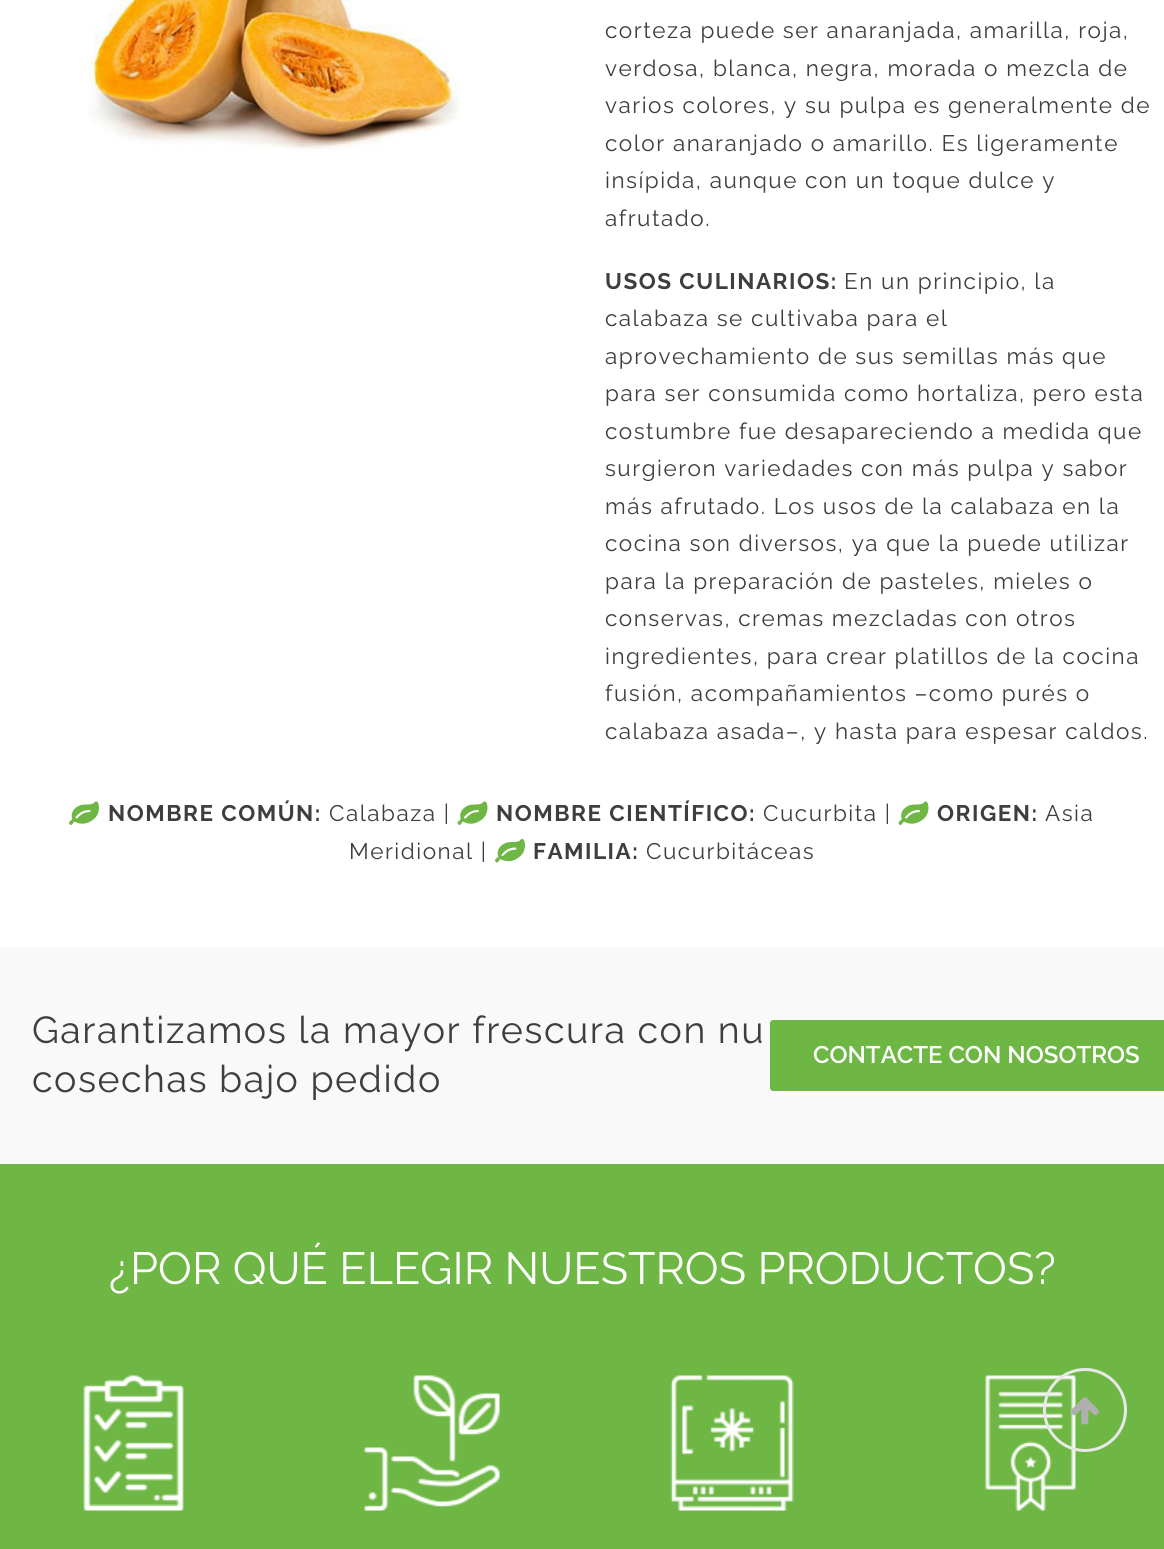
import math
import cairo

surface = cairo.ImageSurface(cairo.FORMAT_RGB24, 1164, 1549)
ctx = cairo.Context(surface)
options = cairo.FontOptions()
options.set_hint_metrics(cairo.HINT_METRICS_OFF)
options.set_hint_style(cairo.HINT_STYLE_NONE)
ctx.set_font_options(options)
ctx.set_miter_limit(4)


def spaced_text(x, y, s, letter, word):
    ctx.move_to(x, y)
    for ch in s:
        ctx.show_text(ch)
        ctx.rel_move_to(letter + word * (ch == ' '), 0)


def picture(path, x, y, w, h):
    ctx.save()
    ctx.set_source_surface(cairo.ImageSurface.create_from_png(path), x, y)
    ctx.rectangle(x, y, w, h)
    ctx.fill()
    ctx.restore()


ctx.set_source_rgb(1, 1, 1)
ctx.paint()
picture("img1.png", 80, 0, 383, 152)
ctx.select_font_face("Raleway")
ctx.set_font_size(22.5)
ctx.set_source_rgb(0.243, 0.243, 0.243)
spaced_text(605, 38, "corteza puede ser anaranjada, amarilla, roja,", 1.5, 0)
spaced_text(605, 76, "verdosa, blanca, negra, morada o mezcla de", 1.5, 0)
spaced_text(605, 113, "varios colores, y su pulpa es generalmente de", 1.5, 0)
spaced_text(605, 151, "color anaranjado o amarillo. Es ligeramente", 1.5, 0)
spaced_text(605, 188, "insípida, aunque con un toque dulce y", 1.5, 0)
spaced_text(605, 226, "afrutado.", 1.5, 0)
ctx.select_font_face("Raleway", cairo.FONT_SLANT_NORMAL, cairo.FONT_WEIGHT_BOLD)
spaced_text(605, 289, "USOS CULINARIOS:", 1.5, 0)
ctx.select_font_face("Raleway")
spaced_text(844, 289, "En un principio, la", 1.5, 0)
spaced_text(605, 326, "calabaza se cultivaba para el", 1.5, 0)
spaced_text(605, 364, "aprovechamiento de sus semillas más que", 1.5, 0)
spaced_text(605, 401, "para ser consumida como hortaliza, pero esta", 1.5, 0)
spaced_text(605, 439, "costumbre fue desapareciendo a medida que", 1.5, 0)
spaced_text(605, 476, "surgieron variedades con más pulpa y sabor", 1.5, 0)
spaced_text(605, 514, "más afrutado. Los usos de la calabaza en la", 1.5, 0)
spaced_text(605, 551, "cocina son diversos, ya que la puede utilizar", 1.5, 0)
spaced_text(605, 589, "para la preparación de pasteles, mieles o", 1.5, 0)
spaced_text(605, 626, "conservas, cremas mezcladas con otros", 1.5, 0)
spaced_text(605, 664, "ingredientes, para crear platillos de la cocina", 1.5, 0)
spaced_text(605, 701, "fusión, acompañamientos –como purés o", 1.5, 0)
spaced_text(605, 739, "calabaza asada–, y hasta para espesar caldos.", 1.5, 0)
picture("img2.png", 69, 801, 30, 24)
ctx.select_font_face("Raleway", cairo.FONT_SLANT_NORMAL, cairo.FONT_WEIGHT_BOLD)
spaced_text(108, 821, "NOMBRE COMÚN:", 1.5, 0)
ctx.select_font_face("Raleway")
spaced_text(329, 821, "Calabaza |", 1.5, 0)
picture("img3.png", 457, 801, 31, 24)
ctx.select_font_face("Raleway", cairo.FONT_SLANT_NORMAL, cairo.FONT_WEIGHT_BOLD)
spaced_text(496, 821, "NOMBRE CIENTÍFICO:", 1.5, 0)
ctx.select_font_face("Raleway")
spaced_text(763, 821, "Cucurbita |", 1.5, 0)
picture("img3.png", 898, 801, 31, 24)
ctx.select_font_face("Raleway", cairo.FONT_SLANT_NORMAL, cairo.FONT_WEIGHT_BOLD)
spaced_text(937, 821, "ORIGEN:", 1.5, 0)
ctx.select_font_face("Raleway")
spaced_text(1045, 821, "Asia", 1.5, 0)
spaced_text(349, 859, "Meridional |", 1.5, 0)
picture("img4.png", 495, 838, 30, 25)
ctx.select_font_face("Raleway", cairo.FONT_SLANT_NORMAL, cairo.FONT_WEIGHT_BOLD)
spaced_text(533, 859, "FAMILIA:", 1.5, 0)
ctx.select_font_face("Raleway")
spaced_text(646, 859, "Cucurbitáceas", 1.5, 0)
ctx.set_source_rgb(0.976, 0.976, 0.976)
ctx.rectangle(0, 947, 1164, 217)
ctx.fill()
ctx.set_font_size(37.5)
ctx.set_source_rgb(0.243, 0.243, 0.243)
spaced_text(32, 1043, "Garantizamos la mayor frescura con nu", 1.5, 0)
spaced_text(32, 1092, "cosechas bajo pedido", 1.5, 0)
ctx.set_source_rgb(0.431, 0.718, 0.267)
ctx.new_path()
ctx.move_to(773, 1020)
ctx.line_to(1164, 1020)
ctx.line_to(1164, 1091)
ctx.line_to(773, 1091)
ctx.curve_to(771.5, 1091, 770, 1089.5, 770, 1088)
ctx.line_to(770, 1023)
ctx.curve_to(770, 1021.5, 771.5, 1020, 773, 1020)
ctx.close_path()
ctx.fill()
ctx.select_font_face("Raleway SemiBold")
ctx.set_font_size(24)
ctx.set_source_rgb(1, 1, 1)
ctx.move_to(813, 1063)
ctx.show_text("CONTACTE CON NOSOTROS")
ctx.set_source_rgb(0.431, 0.718, 0.267)
ctx.rectangle(0, 1164, 1164, 385)
ctx.fill()
ctx.select_font_face("Raleway")
ctx.set_font_size(45)
ctx.set_source_rgb(1, 1, 1)
ctx.move_to(109, 1284)
ctx.show_text("¿POR QUÉ ELEGIR NUESTROS PRODUCTOS?")
picture("img5.png", 83, 1375, 101, 136)
picture("img6.png", 364, 1375, 136, 136)
picture("img7.png", 670, 1375, 124, 136)
picture("img8.png", 985, 1375, 91, 136)
ctx.arc(1085, 1410, 40.5, 0, 2 * math.pi)
ctx.set_source_rgb(0.91, 0.91, 0.91)
ctx.set_line_width(3)
ctx.stroke()
picture("img9.png", 1070, 1397, 30, 28)
surface.write_to_png("page.png")
